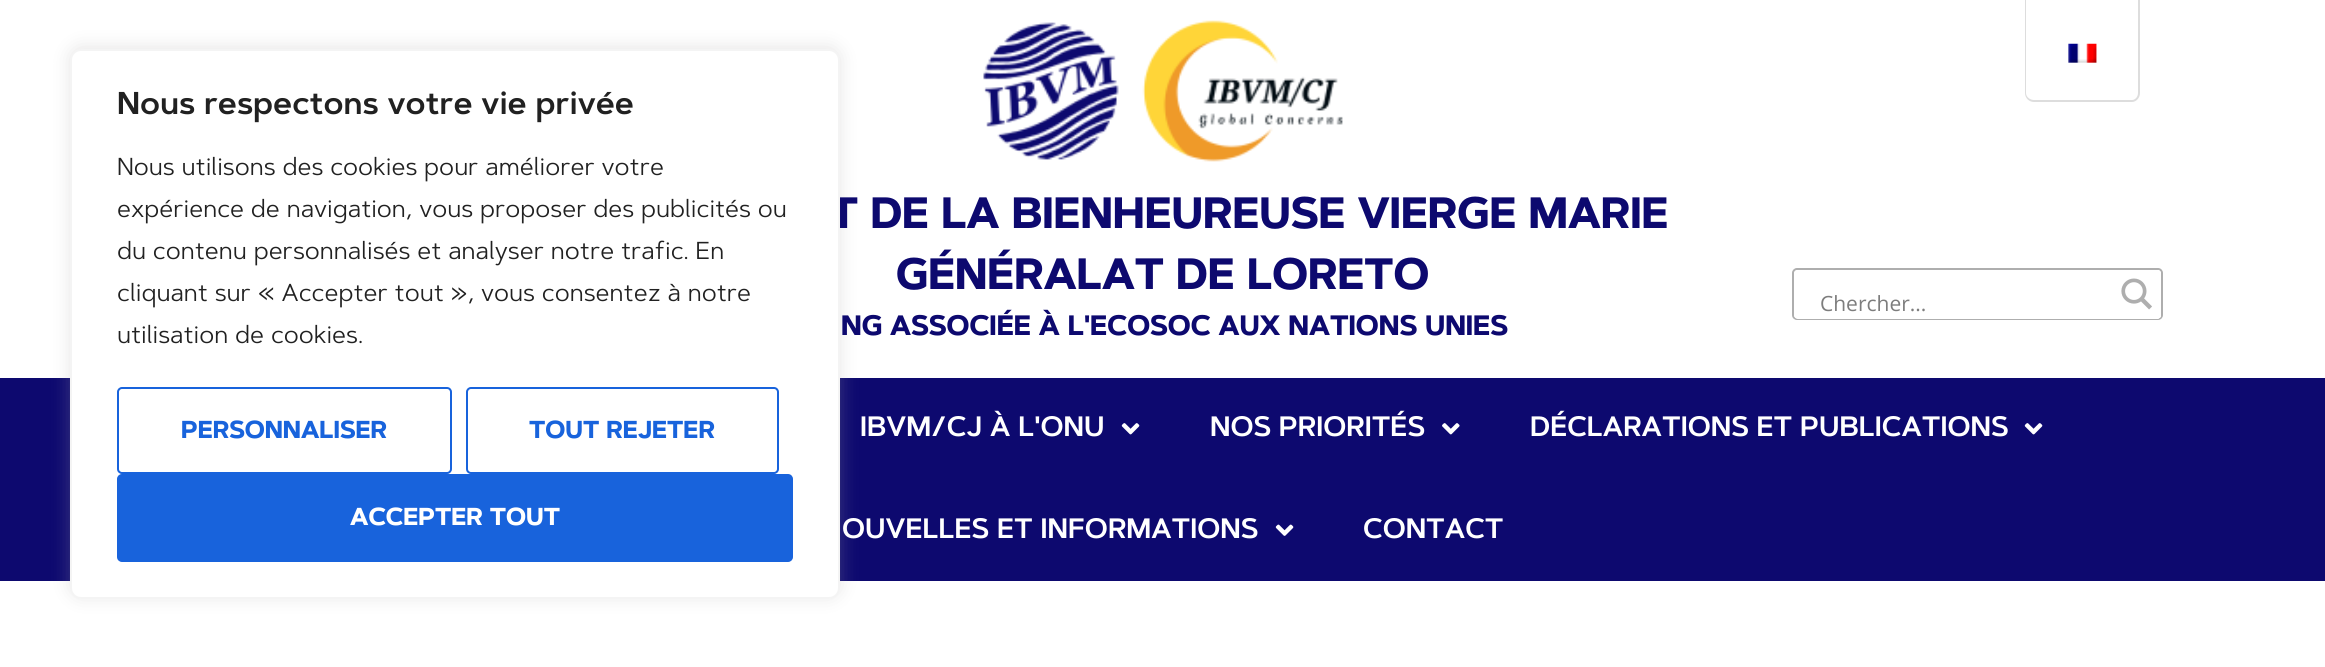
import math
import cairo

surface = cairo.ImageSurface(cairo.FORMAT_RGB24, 2325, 667)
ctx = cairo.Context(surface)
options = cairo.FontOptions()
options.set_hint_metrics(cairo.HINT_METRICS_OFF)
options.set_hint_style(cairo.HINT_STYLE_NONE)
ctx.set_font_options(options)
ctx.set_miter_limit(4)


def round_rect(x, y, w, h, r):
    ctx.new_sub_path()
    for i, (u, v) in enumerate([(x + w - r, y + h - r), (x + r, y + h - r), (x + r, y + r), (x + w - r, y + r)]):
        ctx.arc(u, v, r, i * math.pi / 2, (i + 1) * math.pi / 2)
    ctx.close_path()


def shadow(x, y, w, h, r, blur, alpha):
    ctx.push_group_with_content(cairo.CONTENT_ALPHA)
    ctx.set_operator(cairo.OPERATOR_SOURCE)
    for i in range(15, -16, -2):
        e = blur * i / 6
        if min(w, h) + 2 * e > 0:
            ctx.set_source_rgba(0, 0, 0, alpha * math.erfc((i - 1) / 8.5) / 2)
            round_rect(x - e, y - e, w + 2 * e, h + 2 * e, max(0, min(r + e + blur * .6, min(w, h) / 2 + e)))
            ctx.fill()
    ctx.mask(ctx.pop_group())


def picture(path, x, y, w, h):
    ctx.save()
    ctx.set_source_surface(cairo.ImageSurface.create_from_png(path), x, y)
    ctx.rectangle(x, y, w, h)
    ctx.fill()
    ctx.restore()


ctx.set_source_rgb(1, 1, 1)
ctx.paint()
ctx.set_source_rgb(0.867, 0.867, 0.867)
ctx.set_fill_rule(cairo.FILL_RULE_EVEN_ODD)
ctx.new_path()
ctx.move_to(2025, 0)
ctx.line_to(2140, 0)
ctx.line_to(2140, 93)
ctx.curve_to(2140, 98, 2136, 102, 2132, 102)
ctx.line_to(2034, 102)
ctx.curve_to(2029, 102, 2025, 98, 2025, 93)
ctx.close_path()
ctx.move_to(2026, 0)
ctx.line_to(2138, 0)
ctx.line_to(2138, 93)
ctx.curve_to(2138, 97, 2135, 100, 2132, 100)
ctx.line_to(2034, 100)
ctx.curve_to(2030, 100, 2026, 97, 2026, 93)
ctx.close_path()
ctx.fill()
picture("img1.png", 2068, 43, 29, 20)
ctx.set_source_rgb(0.051, 0.039, 0.435)
ctx.rectangle(0, 378, 2325, 203)
ctx.fill()
ctx.set_source_rgb(0.675, 0.671, 0.671)
shadow(70, 47, 770, 550, 11, 9, 0.3)
ctx.select_font_face("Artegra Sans", cairo.FONT_SLANT_NORMAL, cairo.FONT_WEIGHT_BOLD)
ctx.set_font_size(43.75)
ctx.set_source_rgb(0.051, 0.039, 0.435)
ctx.move_to(829, 228)
ctx.show_text("T DE LA BIENHEUREUSE VIERGE MARIE")
ctx.set_source_rgb(1, 1, 1)
round_rect(71, 50, 768, 548, 10)
ctx.fill_preserve()
ctx.set_source_rgb(0.957, 0.957, 0.957)
ctx.stroke()
ctx.select_font_face("Artegra Sans SemiBold")
ctx.set_font_size(31.5)
ctx.set_source_rgb(0.129, 0.129, 0.129)
ctx.move_to(117, 114)
ctx.show_text("Nous respectons votre vie privée")
ctx.select_font_face("Artegra Sans")
ctx.set_font_size(24.5)
ctx.move_to(117, 175)
ctx.show_text("Nous utilisons des cookies pour améliorer votre")
ctx.move_to(117, 217)
ctx.show_text("expérience de navigation, vous proposer des publicités ou")
ctx.move_to(117, 259)
ctx.show_text("du contenu personnalisés et analyser notre trafic. En")
ctx.move_to(117, 301)
ctx.show_text("cliquant sur « Accepter tout », vous consentez à notre")
ctx.move_to(117, 343)
ctx.show_text("utilisation de cookies.")
round_rect(118, 388, 333, 85, 4)
ctx.set_source_rgb(0.094, 0.388, 0.863)
ctx.stroke()
ctx.select_font_face("Artegra Sans", cairo.FONT_SLANT_NORMAL, cairo.FONT_WEIGHT_BOLD)
ctx.move_to(181, 438)
ctx.show_text("PERSONNALISER")
round_rect(467, 388, 311, 85, 4)
ctx.stroke()
ctx.move_to(529, 438)
ctx.show_text("TOUT REJETER")
round_rect(118, 475, 674, 86, 4)
ctx.fill_preserve()
ctx.stroke()
ctx.set_source_rgb(1, 1, 1)
ctx.move_to(350, 525)
ctx.show_text("ACCEPTER TOUT")
picture("img2.png", 983, 20, 360, 142)
ctx.set_font_size(43.75)
ctx.set_source_rgb(0.051, 0.039, 0.435)
ctx.move_to(896, 289)
ctx.show_text("GÉNÉRALAT DE LORETO")
round_rect(1793, 269, 369, 50, 4)
ctx.set_source_rgb(0.682, 0.682, 0.682)
ctx.stroke()
ctx.set_source_rgb(1, 1, 1)
round_rect(1794, 270, 367, 49, 4)
ctx.fill()
ctx.select_font_face("Open Sans")
ctx.set_font_size(21)
ctx.set_source_rgb(0.49, 0.49, 0.49)
ctx.move_to(1820, 311)
ctx.show_text("Chercher...")
ctx.save()
ctx.set_fill_rule(cairo.FILL_RULE_WINDING)
ctx.rectangle(2112, 270, 49, 49)
ctx.clip()
ctx.set_source_rgba(1, 1, 1, 0.64)
ctx.set_fill_rule(cairo.FILL_RULE_EVEN_ODD)
ctx.new_path()
ctx.move_to(2110, 271)
ctx.line_to(2110, 319)
ctx.line_to(1939, 319)
ctx.line_to(1939, 270)
ctx.line_to(2157, 270)
ctx.line_to(2160, 271)
ctx.close_path()
ctx.move_to(2160, 318)
ctx.curve_to(2161, 317, 2161, 316, 2161, 315)
ctx.line_to(2161, 274)
ctx.curve_to(2161, 273, 2161, 272, 2160, 271)
ctx.close_path()
ctx.fill()
ctx.restore()
ctx.set_source_rgb(1, 1, 1)
ctx.new_path()
ctx.move_to(2112, 270)
ctx.line_to(2157, 270)
ctx.curve_to(2159, 270, 2161, 272, 2161, 274)
ctx.line_to(2161, 315)
ctx.curve_to(2161, 317, 2159, 319, 2157, 319)
ctx.line_to(2112, 319)
ctx.close_path()
ctx.fill()
picture("img3.png", 2121, 278, 31, 32)
ctx.select_font_face("Artegra Sans", cairo.FONT_SLANT_NORMAL, cairo.FONT_WEIGHT_BOLD)
ctx.set_font_size(28)
ctx.set_source_rgb(0.051, 0.039, 0.435)
ctx.move_to(841, 335)
ctx.show_text("NG ASSOCIÉE À L'ECOSOC AUX NATIONS UNIES")
ctx.select_font_face("Artegra Sans SemiBold")
ctx.set_source_rgb(1, 1, 1)
ctx.move_to(860, 436)
ctx.show_text("IBVM/CJ À L'ONU")
picture("img4.png", 1121, 423, 19, 12)
ctx.move_to(1210, 436)
ctx.show_text("NOS PRIORITÉS")
picture("img5.png", 1442, 423, 18, 12)
ctx.move_to(1530, 436)
ctx.show_text("DÉCLARATIONS ET PUBLICATIONS")
picture("img4.png", 2024, 423, 19, 12)
ctx.move_to(842, 538)
ctx.show_text("OUVELLES ET INFORMATIONS")
picture("img6.png", 1275, 524, 19, 12)
ctx.move_to(1363, 538)
ctx.show_text("CONTACT")
surface.write_to_png("page.png")
